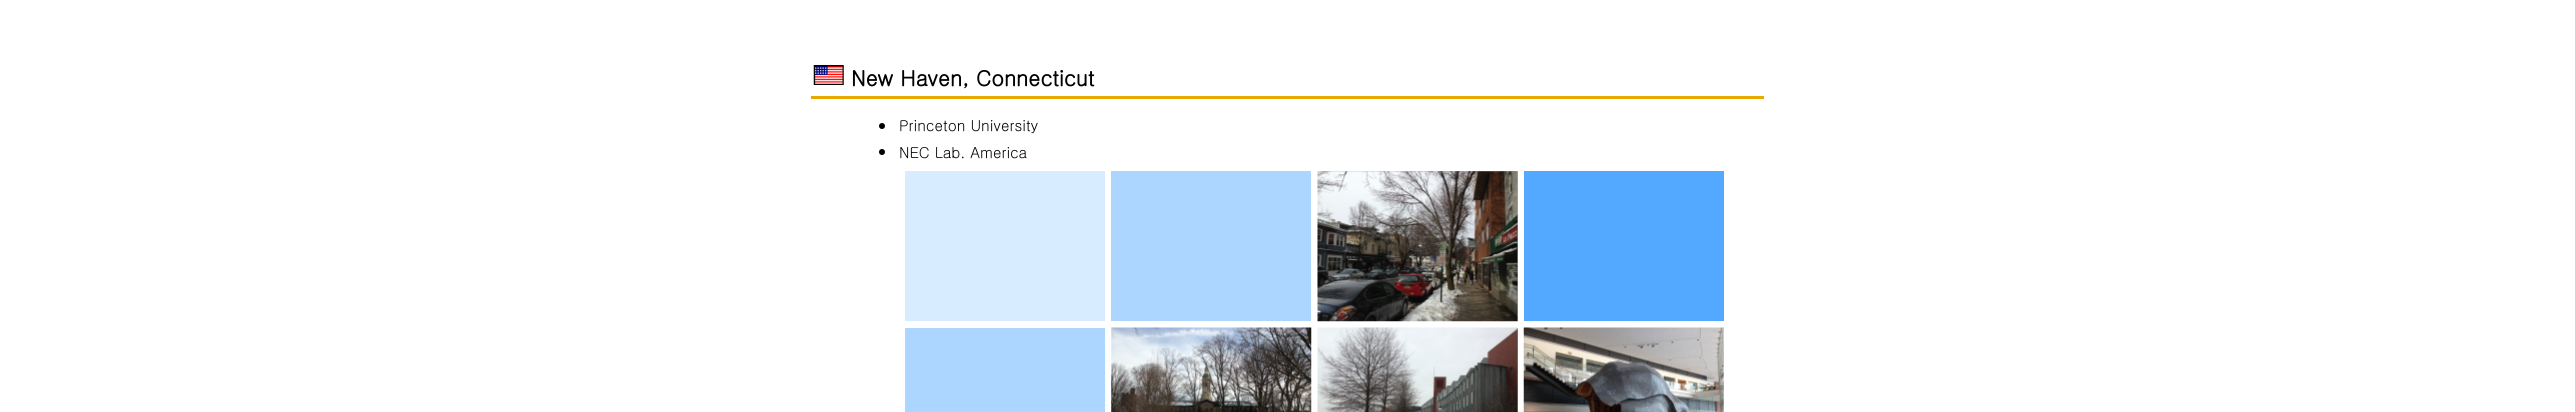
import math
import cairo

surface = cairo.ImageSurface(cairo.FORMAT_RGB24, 2575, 412)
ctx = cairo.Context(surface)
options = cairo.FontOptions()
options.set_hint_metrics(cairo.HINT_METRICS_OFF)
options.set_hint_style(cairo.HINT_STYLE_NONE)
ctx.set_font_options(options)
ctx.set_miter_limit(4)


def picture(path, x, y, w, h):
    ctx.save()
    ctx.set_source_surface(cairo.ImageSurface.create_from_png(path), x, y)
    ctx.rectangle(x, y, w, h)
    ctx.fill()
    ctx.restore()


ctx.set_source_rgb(1, 1, 1)
ctx.paint()
ctx.set_source_rgb(0.91, 0.663, 0.008)
ctx.rectangle(811, 96, 953, 3)
ctx.fill()
picture("img1.png", 813, 65, 31, 20)
ctx.select_font_face("Gulim", cairo.FONT_SLANT_NORMAL, cairo.FONT_WEIGHT_BOLD)
ctx.set_font_size(21)
ctx.set_source_rgb(0, 0, 0)
ctx.move_to(851, 86)
ctx.show_text("New Haven, Connecticut")
ctx.new_path()
ctx.arc(882, 126, 3, 0, 2 * math.pi)
ctx.fill()
ctx.select_font_face("Gulim")
ctx.set_font_size(15)
ctx.move_to(899, 131)
ctx.show_text("Princeton University")
ctx.new_path()
ctx.arc(882, 152, 3, 0, 2 * math.pi)
ctx.fill()
ctx.move_to(899, 158)
ctx.show_text("NEC Lab. America")
ctx.set_source_rgb(0.843, 0.922, 1)
ctx.rectangle(905, 171, 200, 150)
ctx.fill()
ctx.set_source_rgb(0.675, 0.839, 1)
ctx.rectangle(1111, 171, 200, 150)
ctx.fill()
ctx.set_source_rgb(0.502, 0.749, 1)
ctx.rectangle(1318, 171, 200, 150)
ctx.fill()
picture("img2.png", 1317, 171, 201, 151)
ctx.set_source_rgb(0.325, 0.663, 1)
ctx.rectangle(1524, 171, 200, 150)
ctx.fill()
ctx.set_source_rgb(0.675, 0.839, 1)
ctx.rectangle(905, 328, 200, 84)
ctx.fill()
picture("img3.png", 1111, 327, 201, 85)
ctx.set_source_rgb(0.325, 0.663, 1)
ctx.rectangle(1517, 328, 1, 84)
ctx.fill()
picture("img4.png", 1317, 327, 201, 85)
picture("img5.png", 1523, 327, 201, 85)
surface.write_to_png("page.png")
